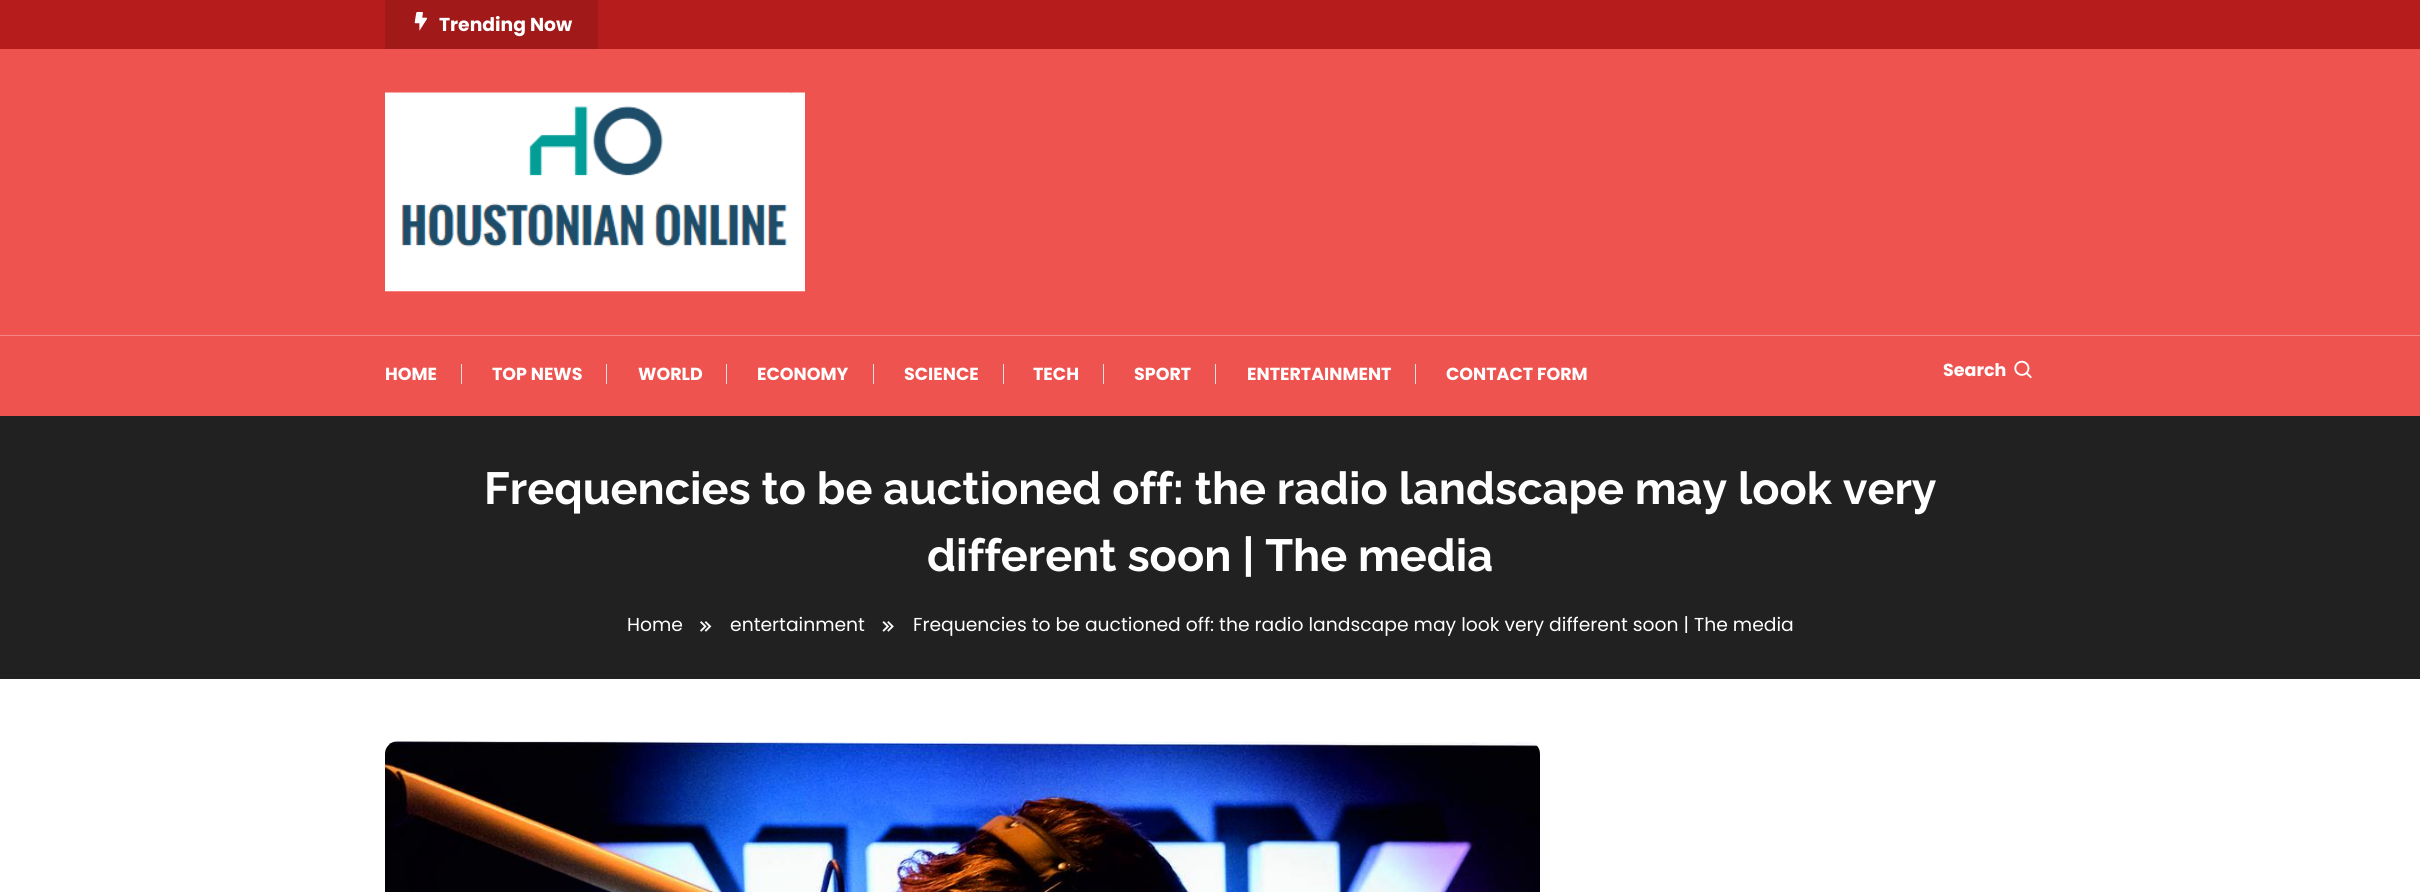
import math
import cairo

surface = cairo.ImageSurface(cairo.FORMAT_RGB24, 2420, 892)
ctx = cairo.Context(surface)
options = cairo.FontOptions()
options.set_hint_metrics(cairo.HINT_METRICS_OFF)
options.set_hint_style(cairo.HINT_STYLE_NONE)
ctx.set_font_options(options)
ctx.set_miter_limit(4)


def picture(path, x, y, w, h):
    ctx.save()
    ctx.set_source_surface(cairo.ImageSurface.create_from_png(path), x, y)
    ctx.rectangle(x, y, w, h)
    ctx.fill()
    ctx.restore()


ctx.set_source_rgb(1, 1, 1)
ctx.paint()
ctx.set_source_rgb(0.718, 0.11, 0.11)
ctx.rectangle(0, 0, 2420, 49)
ctx.fill()
ctx.set_source_rgb(0.631, 0.098, 0.098)
ctx.rectangle(385, 0, 213, 49)
ctx.fill()
picture("img1.png", 414, 12, 13, 19)
ctx.select_font_face("Poppins", cairo.FONT_SLANT_NORMAL, cairo.FONT_WEIGHT_BOLD)
ctx.set_font_size(18.75)
ctx.set_source_rgb(1, 1, 1)
ctx.move_to(439, 31)
ctx.show_text("Trending Now")
ctx.set_source_rgb(0.937, 0.325, 0.314)
ctx.rectangle(0, 49, 2420, 367)
ctx.fill()
picture("img2.png", 385, 92, 420, 200)
ctx.set_source_rgb(0.957, 0.529, 0.522)
ctx.rectangle(0, 335, 2420, 1)
ctx.fill()
ctx.set_font_size(17.5)
ctx.set_source_rgb(1, 1, 1)
ctx.move_to(385, 380)
ctx.show_text("HOME")
ctx.set_source_rgb(0.882, 0.882, 0.882)
ctx.rectangle(461, 364, 1, 20)
ctx.fill()
ctx.set_source_rgb(1, 1, 1)
ctx.move_to(492, 380)
ctx.show_text("TOP NEWS")
ctx.set_source_rgb(0.882, 0.882, 0.882)
ctx.rectangle(606, 364, 1, 20)
ctx.fill()
ctx.set_source_rgb(1, 1, 1)
ctx.move_to(638, 380)
ctx.show_text("WORLD")
ctx.set_source_rgb(0.882, 0.882, 0.882)
ctx.rectangle(726, 364, 1, 20)
ctx.fill()
ctx.set_source_rgb(1, 1, 1)
ctx.move_to(757, 380)
ctx.show_text("ECONOMY")
ctx.set_source_rgb(0.882, 0.882, 0.882)
ctx.rectangle(873, 364, 1, 20)
ctx.fill()
ctx.set_source_rgb(1, 1, 1)
ctx.move_to(904, 380)
ctx.show_text("SCIENCE")
ctx.set_source_rgb(0.882, 0.882, 0.882)
ctx.rectangle(1003, 364, 1, 20)
ctx.fill()
ctx.set_source_rgb(1, 1, 1)
ctx.move_to(1033, 380)
ctx.show_text("TECH")
ctx.set_source_rgb(0.882, 0.882, 0.882)
ctx.rectangle(1103, 364, 1, 20)
ctx.fill()
ctx.set_source_rgb(1, 1, 1)
ctx.move_to(1134, 380)
ctx.show_text("SPORT")
ctx.set_source_rgb(0.882, 0.882, 0.882)
ctx.rectangle(1215, 364, 1, 20)
ctx.fill()
ctx.set_source_rgb(1, 1, 1)
ctx.move_to(1247, 380)
ctx.show_text("ENTERTAINMENT")
ctx.set_source_rgb(0.882, 0.882, 0.882)
ctx.rectangle(1415, 364, 1, 20)
ctx.fill()
ctx.set_source_rgb(1, 1, 1)
ctx.move_to(1446, 380)
ctx.show_text("CONTACT FORM")
ctx.move_to(1943, 376)
ctx.show_text("Search")
picture("img3.png", 2014, 360, 18, 19)
ctx.set_source_rgb(0.129, 0.129, 0.129)
ctx.rectangle(0, 416, 2420, 263)
ctx.fill()
ctx.select_font_face("Raleway", cairo.FONT_SLANT_NORMAL, cairo.FONT_WEIGHT_BOLD)
ctx.set_font_size(45)
ctx.set_source_rgb(1, 1, 1)
ctx.move_to(484, 504)
ctx.show_text("Frequencies to be auctioned off: the radio landscape may look very")
ctx.move_to(927, 571)
ctx.show_text("different soon | The media")
ctx.select_font_face("Poppins")
ctx.set_font_size(18.75)
ctx.move_to(627, 631)
ctx.show_text("Home")
picture("img4.png", 700, 621, 12, 11)
ctx.move_to(730, 631)
ctx.show_text("entertainment")
picture("img5.png", 882, 621, 12, 11)
ctx.move_to(913, 631)
ctx.show_text("Frequencies to be auctioned off: the radio landscape may look very different soon | The media")
picture("img6.png", 385, 741, 1155, 151)
surface.write_to_png("page.png")
